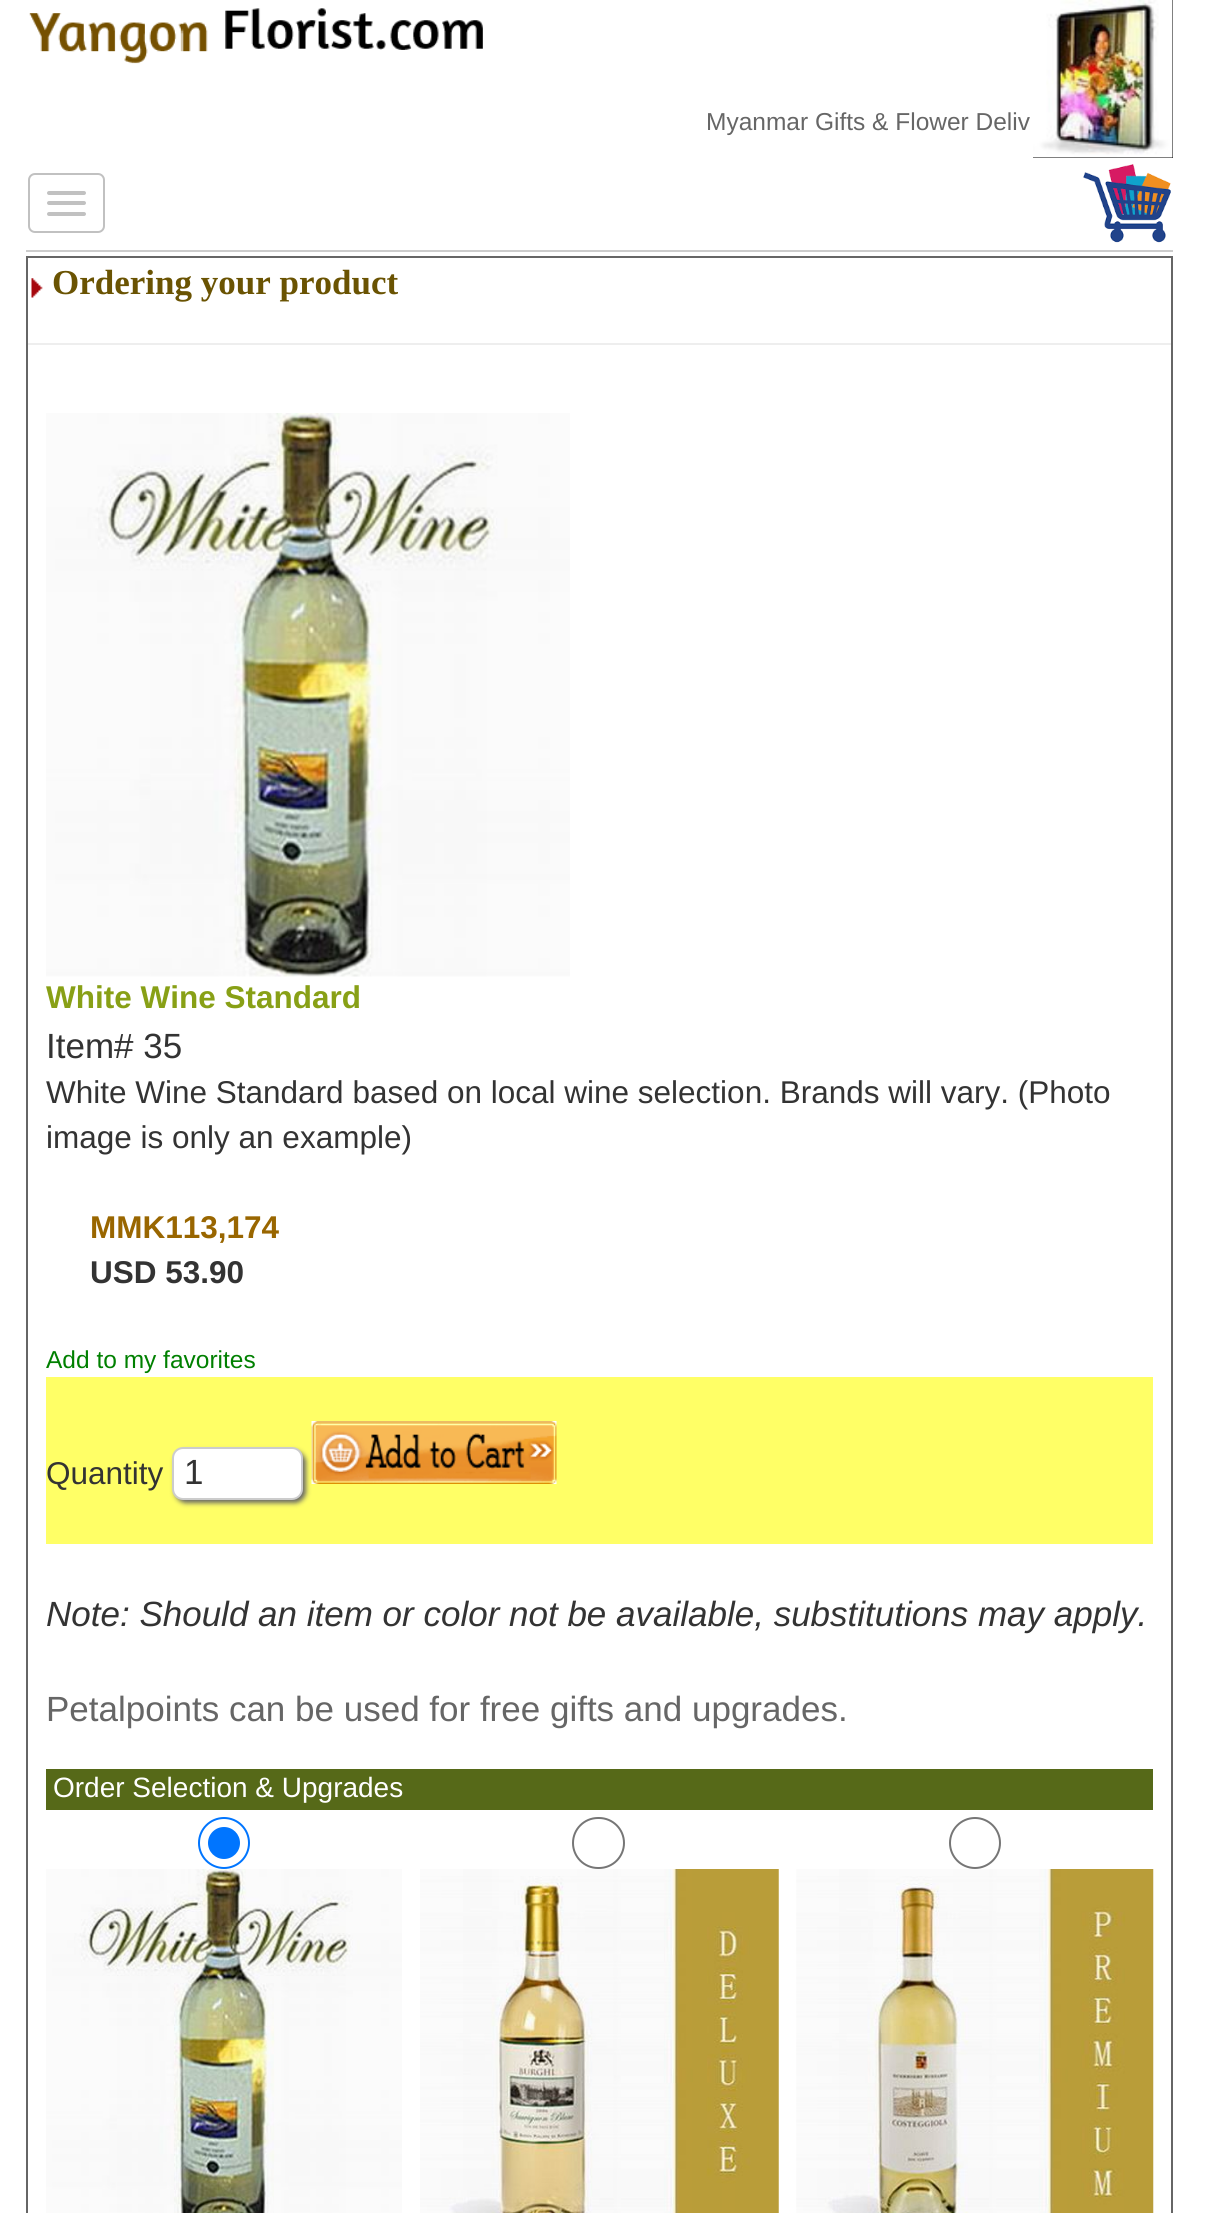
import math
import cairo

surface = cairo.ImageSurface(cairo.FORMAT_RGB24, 1206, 2213)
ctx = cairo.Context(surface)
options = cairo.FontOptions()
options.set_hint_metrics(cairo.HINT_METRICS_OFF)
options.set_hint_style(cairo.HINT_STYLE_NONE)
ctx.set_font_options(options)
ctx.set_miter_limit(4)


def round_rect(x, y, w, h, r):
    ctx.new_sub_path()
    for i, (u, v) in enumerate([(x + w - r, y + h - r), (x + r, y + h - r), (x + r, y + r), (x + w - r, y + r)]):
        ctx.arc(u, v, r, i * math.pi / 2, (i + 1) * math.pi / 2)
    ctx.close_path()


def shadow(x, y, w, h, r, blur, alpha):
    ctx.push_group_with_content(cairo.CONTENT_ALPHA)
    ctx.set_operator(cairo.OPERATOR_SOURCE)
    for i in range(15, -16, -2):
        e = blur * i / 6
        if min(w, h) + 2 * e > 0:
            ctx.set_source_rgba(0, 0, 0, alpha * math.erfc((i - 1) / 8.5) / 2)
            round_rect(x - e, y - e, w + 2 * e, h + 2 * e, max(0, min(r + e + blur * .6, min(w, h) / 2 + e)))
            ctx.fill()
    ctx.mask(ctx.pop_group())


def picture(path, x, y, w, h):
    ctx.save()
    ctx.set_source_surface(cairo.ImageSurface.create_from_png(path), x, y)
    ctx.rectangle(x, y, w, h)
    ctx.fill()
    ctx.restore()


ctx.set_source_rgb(1, 1, 1)
ctx.paint()
picture("img1.png", 29, 8, 454, 56)
ctx.set_source_rgb(0, 0, 0)
ctx.rectangle(1033, 0, 140, 158)
ctx.fill()
picture("img2.png", 1032, 0, 141, 158)
ctx.select_font_face("Liberation Sans")
ctx.set_font_size(24.5)
ctx.set_source_rgb(0.4, 0.4, 0.4)
ctx.move_to(706, 130)
ctx.show_text("Myanmar Gifts & Flower Deliv")
round_rect(29, 174, 75, 58, 6)
ctx.set_source_rgb(0.757, 0.757, 0.757)
ctx.stroke()
round_rect(47, 191, 39, 4, 2)
ctx.fill()
round_rect(47, 201, 39, 4, 2)
ctx.fill()
round_rect(47, 212, 39, 4, 2)
ctx.fill()
picture("img3.png", 1083, 164, 88, 79)
ctx.set_source_rgb(0.8, 0.8, 0.8)
ctx.rectangle(26, 250, 1147, 2)
ctx.fill()
ctx.set_source_rgb(0.4, 0.4, 0.4)
ctx.rectangle(26, 256, 1147, 2)
ctx.fill()
ctx.rectangle(1171, 256, 2, 1957)
ctx.fill()
ctx.rectangle(26, 256, 2, 1957)
ctx.fill()
picture("img4.png", 31, 278, 12, 20)
ctx.select_font_face("Liberation Serif", cairo.FONT_SLANT_NORMAL, cairo.FONT_WEIGHT_BOLD)
ctx.set_font_size(35)
ctx.set_source_rgb(0.416, 0.325, 0.008)
ctx.move_to(52, 294)
ctx.show_text("Ordering your product")
ctx.set_source_rgb(0.933, 0.933, 0.933)
ctx.rectangle(28, 343, 1143, 2)
ctx.fill()
picture("img5.png", 46, 413, 524, 564)
ctx.select_font_face("Liberation Sans", cairo.FONT_SLANT_NORMAL, cairo.FONT_WEIGHT_BOLD)
ctx.set_font_size(31.5)
ctx.set_source_rgb(0.533, 0.627, 0.086)
ctx.move_to(46, 1008)
ctx.show_text("White Wine Standard")
ctx.select_font_face("Liberation Sans")
ctx.set_font_size(35)
ctx.set_source_rgb(0.2, 0.2, 0.2)
ctx.move_to(46, 1058)
ctx.show_text("Item# 35")
ctx.set_font_size(31.5)
ctx.move_to(46, 1103)
ctx.show_text("White Wine Standard based on local wine selection. Brands will vary. (Photo")
ctx.move_to(46, 1148)
ctx.show_text("image is only an example)")
ctx.select_font_face("Liberation Sans", cairo.FONT_SLANT_NORMAL, cairo.FONT_WEIGHT_BOLD)
ctx.set_source_rgb(0.6, 0.4, 0)
ctx.move_to(90, 1238)
ctx.show_text("MMK113,174")
ctx.set_source_rgb(0.2, 0.2, 0.2)
ctx.move_to(90, 1283)
ctx.show_text("USD 53.90")
ctx.select_font_face("Liberation Sans")
ctx.set_font_size(24.5)
ctx.set_source_rgb(0, 0.502, 0)
ctx.move_to(46, 1368)
ctx.show_text("Add to my favorites")
ctx.set_source_rgb(1, 1, 0.4)
ctx.rectangle(46, 1377, 1107, 167)
ctx.fill()
ctx.set_font_size(31.5)
ctx.set_source_rgb(0.2, 0.2, 0.2)
ctx.move_to(46, 1484)
ctx.show_text("Quantity")
picture("img6.png", 311, 1421, 246, 63)
ctx.set_source_rgb(0.4, 0.4, 0.4)
shadow(175, 1451, 131, 52, 11, 2.5, 1)
ctx.set_source_rgb(1, 1, 1)
round_rect(173, 1448, 129, 51, 10)
ctx.fill_preserve()
ctx.set_source_rgb(0.8, 0.8, 0.8)
ctx.stroke()
ctx.set_font_size(35)
ctx.set_source_rgb(0.2, 0.2, 0.2)
ctx.move_to(184, 1484)
ctx.show_text("1")
ctx.select_font_face("Liberation Sans", cairo.FONT_SLANT_ITALIC)
ctx.move_to(46, 1626)
ctx.show_text("Note: Should an item or color not be available, substitutions may apply.")
ctx.select_font_face("Liberation Sans")
ctx.set_source_rgb(0.4, 0.4, 0.4)
ctx.move_to(46, 1721)
ctx.show_text("Petalpoints can be used for free gifts and upgrades.")
ctx.set_source_rgb(0.337, 0.412, 0.094)
ctx.rectangle(46, 1769, 1107, 41)
ctx.fill()
ctx.set_font_size(28)
ctx.set_source_rgb(1, 1, 1)
ctx.move_to(53, 1797)
ctx.show_text("Order Selection & Upgrades")
ctx.new_path()
ctx.arc(224, 1843, 25, 0, 2 * math.pi)
ctx.set_source_rgb(0, 0.459, 1)
ctx.stroke()
ctx.arc(224, 1843, 16, 0, 2 * math.pi)
ctx.fill()
picture("img7.png", 46, 1869, 356, 344)
round_rect(573, 1818, 51, 50, 25)
ctx.set_source_rgb(0.463, 0.463, 0.463)
ctx.stroke()
picture("img8.png", 420, 1869, 359, 344)
ctx.arc(975, 1843, 25, 0, 2 * math.pi)
ctx.stroke()
picture("img9.png", 796, 1869, 358, 344)
surface.write_to_png("page.png")
